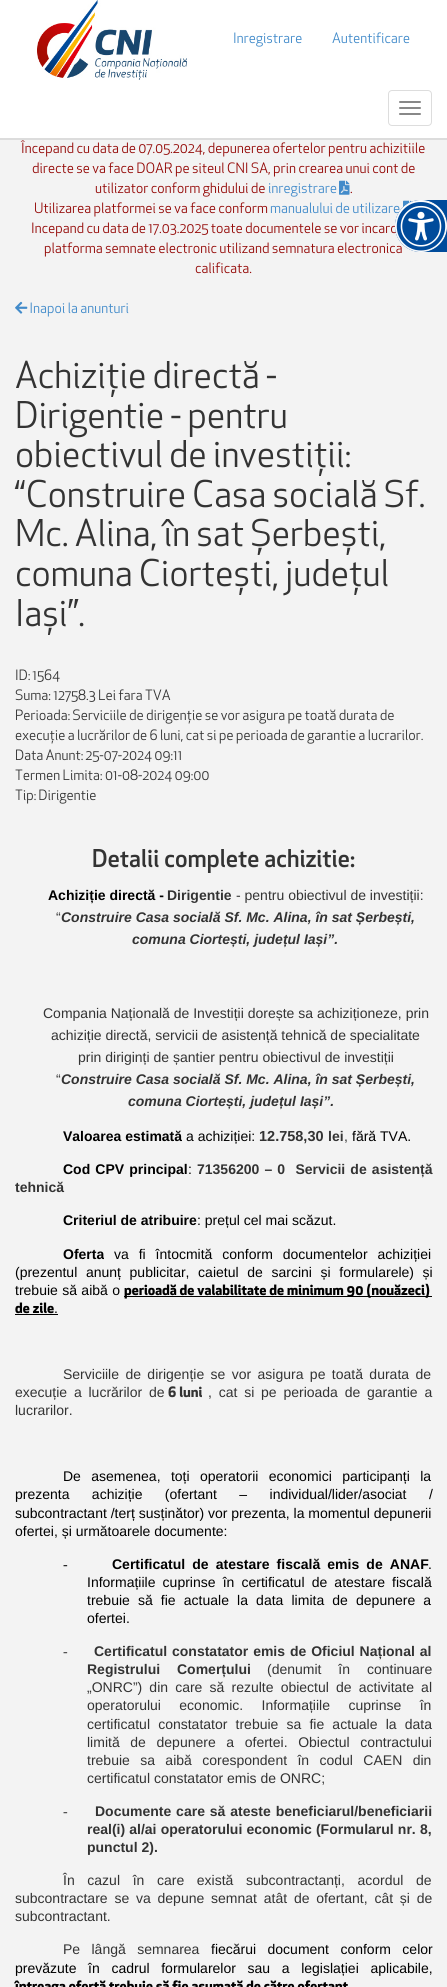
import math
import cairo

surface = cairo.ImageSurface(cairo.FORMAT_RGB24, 447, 1987)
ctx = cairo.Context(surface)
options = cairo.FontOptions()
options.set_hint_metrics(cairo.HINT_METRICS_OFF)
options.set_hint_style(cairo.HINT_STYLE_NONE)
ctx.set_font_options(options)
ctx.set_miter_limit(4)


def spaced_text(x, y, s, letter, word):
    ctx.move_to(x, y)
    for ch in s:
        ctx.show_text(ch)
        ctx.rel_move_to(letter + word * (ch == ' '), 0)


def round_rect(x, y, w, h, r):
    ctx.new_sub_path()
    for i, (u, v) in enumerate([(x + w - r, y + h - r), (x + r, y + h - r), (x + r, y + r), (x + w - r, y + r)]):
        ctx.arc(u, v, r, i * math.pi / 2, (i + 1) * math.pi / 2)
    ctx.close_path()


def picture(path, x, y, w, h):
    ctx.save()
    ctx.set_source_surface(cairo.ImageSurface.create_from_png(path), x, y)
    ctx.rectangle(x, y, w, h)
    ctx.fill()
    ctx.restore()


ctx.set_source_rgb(0.953, 0.953, 0.953)
ctx.paint()
picture("img12.png", 270, 202, 130, 12)
picture("img13.png", 403, 200, 9, 8)
picture("img14.png", 32, 222, 364, 15)
picture("img15.png", 44, 242, 358, 15)
ctx.set_source_rgb(0, 0.294, 0.608)
ctx.new_path()
ctx.move_to(421, 200)
ctx.line_to(447, 200)
ctx.line_to(447, 252)
ctx.line_to(421, 252)
ctx.curve_to(406.5, 252, 395, 240.5, 395, 226)
ctx.curve_to(395, 211.5, 406.5, 200, 421, 200)
ctx.close_path()
ctx.fill()
ctx.set_source_rgb(1, 1, 1)
ctx.arc(421, 226, 25.5, 0, 2 * math.pi)
ctx.fill_preserve()
ctx.set_line_width(1)
ctx.stroke()
picture("img1.png", 396, 202, 50, 49)
ctx.rectangle(0, 0, 447, 138)
ctx.fill()
ctx.set_source_rgb(0.863, 0.863, 0.863)
ctx.rectangle(0, 138, 447, 2)
ctx.fill()
round_rect(388.5, 90.5, 43, 35, 3.5)
ctx.set_source_rgb(0.867, 0.867, 0.867)
ctx.stroke()
ctx.set_source_rgb(0.533, 0.533, 0.533)
round_rect(399, 101, 22, 2, 1)
ctx.fill()
round_rect(399, 107, 22, 2, 1)
ctx.fill()
round_rect(399, 113, 22, 2, 1)
ctx.fill()
picture("img2.png", 37, 0, 150, 80)
picture("img3.png", 234, 32, 68, 15)
picture("img4.png", 332, 32, 78, 12)
picture("img5.png", 20, 140, 405, 17)
picture("img6.png", 32, 162, 383, 15)
picture("img7.png", 95, 182, 170, 15)
picture("img8.png", 269, 183, 68, 14)
picture("img9.png", 339, 180, 11, 15)
picture("img10.png", 350, 191, 2, 3)
picture("img11.png", 35, 202, 233, 15)
picture("img16.png", 195, 262, 57, 12)
picture("img17.png", 15, 301, 13, 13)
picture("img18.png", 30, 302, 99, 15)
picture("img19.png", 16, 360, 260, 37)
picture("img20.png", 17, 401, 269, 37)
picture("img21.png", 17, 440, 333, 36)
picture("img22.png", 14, 479, 410, 29)
picture("img23.png", 17, 518, 368, 37)
picture("img24.png", 17, 558, 371, 38)
picture("img25.png", 18, 599, 66, 36)
picture("img26.png", 16, 669, 14, 12)
picture("img27.png", 32, 669, 28, 13)
picture("img28.png", 15, 689, 36, 12)
picture("img29.png", 53, 689, 118, 13)
picture("img30.png", 16, 709, 54, 12)
picture("img31.png", 73, 709, 321, 15)
picture("img32.png", 15, 729, 408, 15)
picture("img33.png", 16, 749, 67, 12)
picture("img34.png", 85, 751, 96, 11)
picture("img35.png", 15, 769, 87, 12)
picture("img36.png", 105, 769, 104, 13)
picture("img37.png", 15, 789, 21, 15)
picture("img38.png", 39, 789, 57, 15)
picture("img39.png", 93, 849, 262, 24)
ctx.select_font_face("Liberation Sans", cairo.FONT_SLANT_NORMAL, cairo.FONT_WEIGHT_BOLD)
ctx.set_font_size(14)
ctx.set_source_rgb(0, 0, 0)
ctx.move_to(48, 900)
ctx.show_text("Achiziție directă -")
ctx.set_source_rgb(0.2, 0.2, 0.2)
ctx.move_to(167, 900)
ctx.show_text("Dirigentie")
ctx.select_font_face("Liberation Sans")
ctx.move_to(236, 900)
ctx.show_text("- pentru obiectivul de investiții:")
ctx.move_to(56, 922)
ctx.show_text("“")
ctx.select_font_face("Liberation Sans", cairo.FONT_SLANT_ITALIC, cairo.FONT_WEIGHT_BOLD)
ctx.move_to(61, 922)
ctx.show_text("Construire Casa socială Sf. Mc. Alina, în sat Șerbești,")
ctx.move_to(132, 944)
ctx.show_text("comuna Ciortești, județul Iași”.")
ctx.select_font_face("Liberation Sans")
ctx.move_to(43, 1018)
ctx.show_text("Compania Națională de Investiții dorește sa achiziționeze, prin")
ctx.move_to(51, 1040)
ctx.show_text("achiziție directă, servicii de asistență tehnică de specialitate")
ctx.move_to(78, 1062)
ctx.show_text("prin diriginți de șantier pentru obiectivul de investiții")
ctx.move_to(56, 1084)
ctx.show_text("“")
ctx.select_font_face("Liberation Sans", cairo.FONT_SLANT_ITALIC, cairo.FONT_WEIGHT_BOLD)
ctx.move_to(61, 1084)
ctx.show_text("Construire Casa socială Sf. Mc. Alina, în sat Șerbești,")
ctx.move_to(128, 1106)
ctx.show_text("comuna Ciortești, județul Iași”.")
ctx.select_font_face("Liberation Sans", cairo.FONT_SLANT_NORMAL, cairo.FONT_WEIGHT_BOLD)
ctx.set_source_rgb(0, 0, 0)
ctx.move_to(63, 1141)
ctx.show_text("Valoarea estimată")
ctx.select_font_face("Liberation Sans")
ctx.move_to(186, 1141)
ctx.show_text("a achiziției:")
ctx.select_font_face("Liberation Sans", cairo.FONT_SLANT_NORMAL, cairo.FONT_WEIGHT_BOLD)
ctx.set_font_size(14.5)
ctx.set_source_rgb(0.2, 0.2, 0.2)
ctx.move_to(259, 1141)
ctx.show_text("12.758,30")
ctx.set_font_size(14)
ctx.move_to(328, 1141)
ctx.show_text("lei")
ctx.select_font_face("Liberation Sans")
ctx.move_to(344, 1141)
ctx.show_text(",")
ctx.set_source_rgb(0, 0, 0)
ctx.move_to(352, 1141)
ctx.show_text("fără TVA.")
ctx.select_font_face("Liberation Sans", cairo.FONT_SLANT_NORMAL, cairo.FONT_WEIGHT_BOLD)
spaced_text(63, 1174, "Cod CPV principal", 0, 1.25)
ctx.select_font_face("Liberation Sans")
ctx.move_to(188, 1174)
ctx.show_text(":")
ctx.select_font_face("Liberation Sans", cairo.FONT_SLANT_NORMAL, cairo.FONT_WEIGHT_BOLD)
ctx.set_source_rgb(0.2, 0.2, 0.2)
spaced_text(197, 1174, "71356200 – 0  Servicii de asistență", 0, 1.25)
ctx.move_to(15, 1192)
ctx.show_text("tehnică")
ctx.set_source_rgb(0, 0, 0)
ctx.move_to(63, 1225)
ctx.show_text("Criteriul de atribuire")
ctx.select_font_face("Liberation Sans")
ctx.move_to(197, 1225)
ctx.show_text(": prețul cel mai scăzut.")
ctx.select_font_face("Liberation Sans", cairo.FONT_SLANT_NORMAL, cairo.FONT_WEIGHT_BOLD)
ctx.move_to(63, 1259)
ctx.show_text("Oferta")
ctx.select_font_face("Liberation Sans")
spaced_text(114, 1259, "va fi întocmită conform documentelor achiziției", 0, 6)
spaced_text(15, 1277, "(prezentul anunț publicitar, caietul de sarcini și formularele) și", 0, 4.75)
spaced_text(15, 1295, "trebuie să aibă o", 0, 0.5)
ctx.rectangle(124, 1296, 308, 1)
ctx.fill()
picture("img40.png", 124, 1283, 306, 16)
picture("img41.png", 15, 1302, 39, 12)
ctx.move_to(54, 1313)
ctx.show_text(".")
ctx.rectangle(15, 1314, 43, 1)
ctx.fill()
ctx.set_source_rgb(0.2, 0.2, 0.2)
spaced_text(63, 1379, "Serviciile de dirigenție se vor asigura pe toată durata de", 0, 2.5)
spaced_text(15, 1397, "execuție a lucrărilor de", 0, 2.9)
picture("img42.png", 168, 1386, 34, 12)
spaced_text(208, 1397, ", cat si pe perioada de garantie a", 0, 2.9)
ctx.move_to(15, 1415)
ctx.show_text("lucrarilor.")
ctx.set_source_rgb(0, 0, 0)
spaced_text(63, 1481, "De asemenea, toți operatorii economici participanți la", 0, 6.5)
spaced_text(15, 1499, "prezenta achiziție (ofertant – individual/lider/asociat /", 0, 18.5)
ctx.move_to(15, 1518)
ctx.show_text("subcontractant /terț susținător) vor prezenta, la momentul depunerii")
ctx.move_to(15, 1536)
ctx.show_text("ofertei, și următoarele documente:")
ctx.select_font_face("Liberation Serif")
ctx.move_to(63, 1569)
ctx.show_text("-")
ctx.select_font_face("Liberation Sans", cairo.FONT_SLANT_NORMAL, cairo.FONT_WEIGHT_BOLD)
spaced_text(112, 1569, "Certificatul de atestare fiscală emis de ANAF", 0, 3.25)
ctx.select_font_face("Liberation Sans")
ctx.move_to(428, 1569)
ctx.show_text(".")
spaced_text(87, 1587, "Informațiile cuprinse în certificatul de atestare fiscală", 0, 3.25)
spaced_text(87, 1605, "trebuie să fie actuale la data limita de depunere a", 0, 4.25)
ctx.move_to(87, 1623)
ctx.show_text("ofertei.")
ctx.select_font_face("Liberation Serif")
ctx.set_source_rgb(0.2, 0.2, 0.2)
ctx.move_to(63, 1656)
ctx.show_text("-")
ctx.select_font_face("Liberation Sans", cairo.FONT_SLANT_NORMAL, cairo.FONT_WEIGHT_BOLD)
spaced_text(94, 1656, "Certificatul constatator emis de Oficiul Național al", 0, 1)
spaced_text(87, 1674, "Registrului Comerțului", 0, 13)
ctx.select_font_face("Liberation Sans")
spaced_text(267, 1674, "(denumit în continuare", 0, 13)
spaced_text(87, 1692, "„ONRC”) din care să rezulte obiectul de activitate al", 0, 3.25)
spaced_text(87, 1710, "operatorului economic. Informațiile cuprinse în", 0, 14.5)
spaced_text(87, 1729, "certificatul constatator trebuie sa fie actuale la data", 0, 4.25)
spaced_text(87, 1747, "limită de depunere a ofertei. Obiectul contractului", 0, 6.75)
spaced_text(87, 1765, "trebuie sa aibă corespondent în codul CAEN din", 0, 6.5)
ctx.move_to(87, 1783)
ctx.show_text("certificatul constatator emis de ONRC;")
ctx.select_font_face("Liberation Serif")
ctx.move_to(63, 1816)
ctx.show_text("-")
ctx.select_font_face("Liberation Sans", cairo.FONT_SLANT_NORMAL, cairo.FONT_WEIGHT_BOLD)
spaced_text(95, 1816, "Documente care să ateste beneficiarul/beneficiarii", 0, 1)
spaced_text(87, 1834, "real(i) al/ai operatorului economic (Formularul nr. 8,", 0, 0.25)
ctx.move_to(87, 1852)
ctx.show_text("punctul 2).")
ctx.select_font_face("Liberation Sans")
spaced_text(63, 1885, "În cazul în care există subcontractanți, acordul de", 0, 8.75)
spaced_text(15, 1903, "subcontractare se va depune semnat atât de ofertant, cât și de", 0, 2.9)
ctx.move_to(15, 1921)
ctx.show_text("subcontractant.")
spaced_text(63, 1954, "Pe lângă semnarea", 0, 7.5)
ctx.set_source_rgb(0, 0, 0)
spaced_text(211, 1954, "fiecărui document conform celor", 0, 7.5)
spaced_text(15, 1973, "prevăzute în cadrul formularelor sau a legislației aplicabile,", 0, 7.75)
picture("img43.png", 14, 1980, 334, 7)
surface.write_to_png("page.png")
